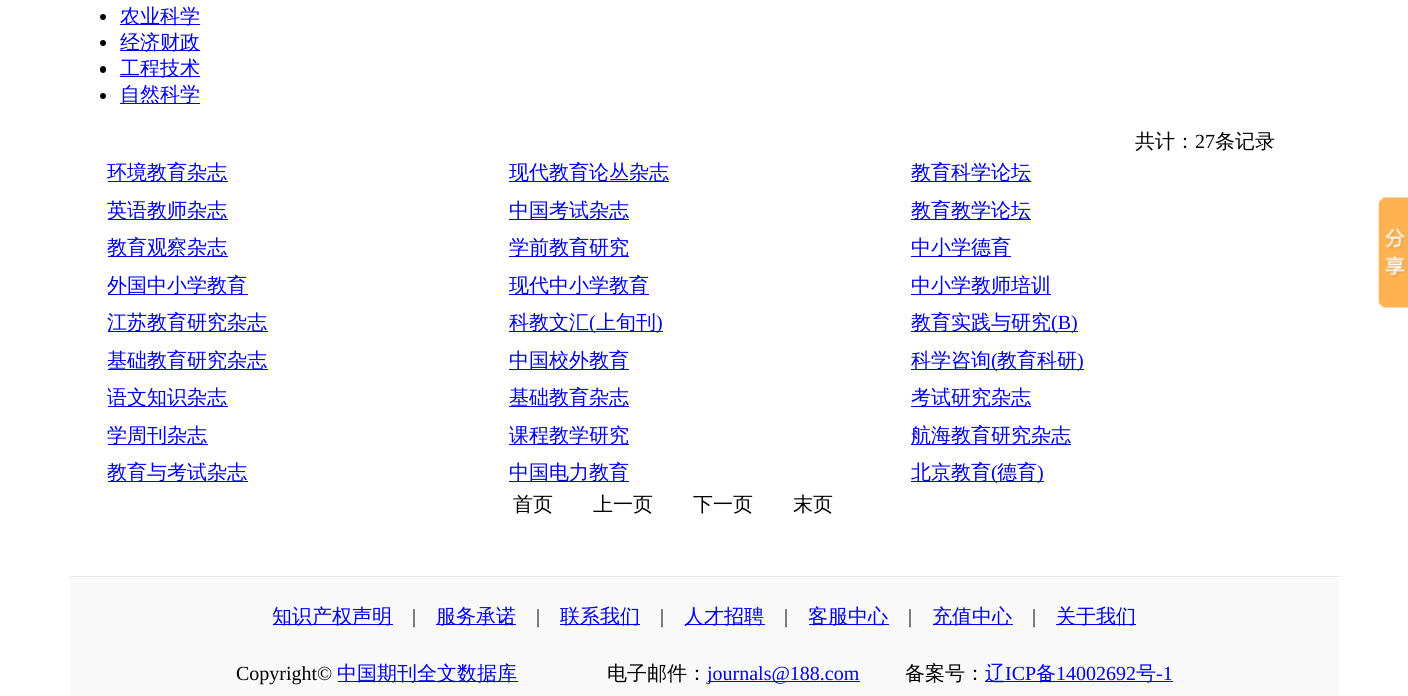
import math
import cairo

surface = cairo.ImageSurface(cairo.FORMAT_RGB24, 1408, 696)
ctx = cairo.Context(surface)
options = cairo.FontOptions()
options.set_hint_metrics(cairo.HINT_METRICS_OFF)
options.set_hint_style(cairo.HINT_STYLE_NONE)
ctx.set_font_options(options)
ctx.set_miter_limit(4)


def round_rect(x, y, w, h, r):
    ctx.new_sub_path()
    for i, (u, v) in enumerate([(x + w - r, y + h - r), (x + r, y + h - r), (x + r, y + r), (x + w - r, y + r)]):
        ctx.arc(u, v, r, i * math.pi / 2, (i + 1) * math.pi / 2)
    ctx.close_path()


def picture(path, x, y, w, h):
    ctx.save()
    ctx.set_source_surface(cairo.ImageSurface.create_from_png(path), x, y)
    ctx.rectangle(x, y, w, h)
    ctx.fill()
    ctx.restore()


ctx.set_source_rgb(1, 1, 1)
ctx.paint()
ctx.set_source_rgb(0, 0, 0)
ctx.arc(103, 17, 3, 0, 2 * math.pi)
ctx.fill()
ctx.set_source_rgb(0, 0, 0.933)
ctx.rectangle(120, 24, 80, 1)
ctx.fill()
ctx.select_font_face("WenQuanYi Zen Hei Medium")
ctx.set_font_size(20)
ctx.move_to(120, 23)
ctx.show_text("农业科学")
ctx.set_source_rgb(0, 0, 0)
ctx.new_path()
ctx.arc(103, 43, 3, 0, 2 * math.pi)
ctx.fill()
ctx.set_source_rgb(0, 0, 0.933)
ctx.rectangle(120, 50, 80, 1)
ctx.fill()
ctx.move_to(120, 49)
ctx.show_text("经济财政")
ctx.set_source_rgb(0, 0, 0)
round_rect(100, 66, 6, 7, 3)
ctx.fill()
ctx.set_source_rgb(0, 0, 0.933)
ctx.rectangle(120, 76, 80, 1)
ctx.fill()
ctx.move_to(120, 75)
ctx.show_text("工程技术")
ctx.set_source_rgb(0, 0, 0)
ctx.new_path()
ctx.arc(103, 96, 3, 0, 2 * math.pi)
ctx.fill()
ctx.set_source_rgb(0, 0, 0.933)
ctx.rectangle(120, 103, 80, 1)
ctx.fill()
ctx.move_to(120, 101)
ctx.show_text("自然科学")
ctx.set_source_rgb(0, 0, 0)
ctx.move_to(1135, 148)
ctx.show_text("共计：")
ctx.select_font_face("Liberation Serif")
ctx.move_to(1195, 148)
ctx.show_text("27")
ctx.select_font_face("WenQuanYi Zen Hei Medium")
ctx.move_to(1215, 148)
ctx.show_text("条记录")
ctx.set_source_rgb(0, 0, 0.933)
ctx.rectangle(108, 181, 120, 1)
ctx.fill()
ctx.move_to(107, 179)
ctx.show_text("环境教育杂志")
ctx.rectangle(509, 181, 160, 1)
ctx.fill()
ctx.move_to(509, 179)
ctx.show_text("现代教育论丛杂志")
ctx.rectangle(911, 181, 120, 1)
ctx.fill()
ctx.move_to(911, 179)
ctx.show_text("教育科学论坛")
ctx.rectangle(108, 219, 120, 1)
ctx.fill()
ctx.move_to(107, 217)
ctx.show_text("英语教师杂志")
ctx.rectangle(509, 219, 120, 1)
ctx.fill()
ctx.move_to(509, 217)
ctx.show_text("中国考试杂志")
ctx.rectangle(911, 219, 120, 1)
ctx.fill()
ctx.move_to(911, 217)
ctx.show_text("教育教学论坛")
ctx.rectangle(108, 256, 120, 1)
ctx.fill()
ctx.move_to(107, 254)
ctx.show_text("教育观察杂志")
ctx.rectangle(509, 256, 120, 1)
ctx.fill()
ctx.move_to(509, 254)
ctx.show_text("学前教育研究")
ctx.rectangle(911, 256, 100, 1)
ctx.fill()
ctx.move_to(911, 254)
ctx.show_text("中小学德育")
ctx.rectangle(108, 294, 140, 1)
ctx.fill()
ctx.move_to(107, 292)
ctx.show_text("外国中小学教育")
ctx.rectangle(509, 294, 140, 1)
ctx.fill()
ctx.move_to(509, 292)
ctx.show_text("现代中小学教育")
ctx.rectangle(911, 294, 140, 1)
ctx.fill()
ctx.move_to(911, 292)
ctx.show_text("中小学教师培训")
ctx.rectangle(108, 331, 160, 1)
ctx.fill()
ctx.move_to(107, 329)
ctx.show_text("江苏教育研究杂志")
ctx.rectangle(509, 331, 154, 1)
ctx.fill()
ctx.move_to(509, 329)
ctx.show_text("科教文汇")
ctx.select_font_face("Liberation Serif")
ctx.move_to(589, 329)
ctx.show_text("(")
ctx.select_font_face("WenQuanYi Zen Hei Medium")
ctx.move_to(596, 329)
ctx.show_text("上旬刊")
ctx.select_font_face("Liberation Serif")
ctx.move_to(656, 329)
ctx.show_text(")")
ctx.rectangle(911, 331, 167, 1)
ctx.fill()
ctx.select_font_face("WenQuanYi Zen Hei Medium")
ctx.move_to(911, 329)
ctx.show_text("教育实践与研究")
ctx.select_font_face("Liberation Serif")
ctx.move_to(1051, 329)
ctx.show_text("(B)")
ctx.rectangle(108, 369, 160, 1)
ctx.fill()
ctx.select_font_face("WenQuanYi Zen Hei Medium")
ctx.move_to(107, 367)
ctx.show_text("基础教育研究杂志")
ctx.rectangle(509, 369, 120, 1)
ctx.fill()
ctx.move_to(509, 367)
ctx.show_text("中国校外教育")
ctx.rectangle(911, 369, 173, 1)
ctx.fill()
ctx.move_to(911, 367)
ctx.show_text("科学咨询")
ctx.select_font_face("Liberation Serif")
ctx.move_to(991, 367)
ctx.show_text("(")
ctx.select_font_face("WenQuanYi Zen Hei Medium")
ctx.move_to(997, 367)
ctx.show_text("教育科研")
ctx.select_font_face("Liberation Serif")
ctx.move_to(1077, 367)
ctx.show_text(")")
ctx.rectangle(108, 406, 120, 1)
ctx.fill()
ctx.select_font_face("WenQuanYi Zen Hei Medium")
ctx.move_to(107, 404)
ctx.show_text("语文知识杂志")
ctx.rectangle(509, 406, 120, 1)
ctx.fill()
ctx.move_to(509, 404)
ctx.show_text("基础教育杂志")
ctx.rectangle(911, 406, 120, 1)
ctx.fill()
ctx.move_to(911, 404)
ctx.show_text("考试研究杂志")
ctx.rectangle(108, 444, 100, 1)
ctx.fill()
ctx.move_to(107, 442)
ctx.show_text("学周刊杂志")
ctx.rectangle(509, 444, 120, 1)
ctx.fill()
ctx.move_to(509, 442)
ctx.show_text("课程教学研究")
ctx.rectangle(911, 444, 160, 1)
ctx.fill()
ctx.move_to(911, 442)
ctx.show_text("航海教育研究杂志")
ctx.rectangle(108, 481, 140, 1)
ctx.fill()
ctx.move_to(107, 479)
ctx.show_text("教育与考试杂志")
ctx.rectangle(509, 481, 120, 1)
ctx.fill()
ctx.move_to(509, 479)
ctx.show_text("中国电力教育")
ctx.rectangle(911, 481, 133, 1)
ctx.fill()
ctx.move_to(911, 479)
ctx.show_text("北京教育")
ctx.select_font_face("Liberation Serif")
ctx.move_to(991, 479)
ctx.show_text("(")
ctx.select_font_face("WenQuanYi Zen Hei Medium")
ctx.move_to(997, 479)
ctx.show_text("德育")
ctx.select_font_face("Liberation Serif")
ctx.move_to(1037, 479)
ctx.show_text(")")
ctx.select_font_face("WenQuanYi Zen Hei Medium")
ctx.set_source_rgb(0, 0, 0)
ctx.move_to(513, 511)
ctx.show_text("首页")
ctx.move_to(593, 511)
ctx.show_text("上一页")
ctx.move_to(693, 511)
ctx.show_text("下一页")
ctx.move_to(793, 511)
ctx.show_text("末页")
ctx.set_source_rgb(0.914, 0.914, 0.914)
ctx.rectangle(70, 576, 1269, 1)
ctx.fill()
ctx.set_source_rgb(0.976, 0.976, 0.976)
ctx.rectangle(70, 578, 1269, 118)
ctx.fill()
ctx.set_source_rgb(0, 0, 0.933)
ctx.rectangle(273, 624, 120, 1)
ctx.fill()
ctx.move_to(272, 623)
ctx.show_text("知识产权声明")
ctx.select_font_face("Liberation Serif")
ctx.set_source_rgb(0, 0, 0)
ctx.move_to(412, 623)
ctx.show_text("|")
ctx.set_source_rgb(0, 0, 0.933)
ctx.rectangle(436, 624, 80, 1)
ctx.fill()
ctx.select_font_face("WenQuanYi Zen Hei Medium")
ctx.move_to(436, 623)
ctx.show_text("服务承诺")
ctx.select_font_face("Liberation Serif")
ctx.set_source_rgb(0, 0, 0)
ctx.move_to(536, 623)
ctx.show_text("|")
ctx.set_source_rgb(0, 0, 0.933)
ctx.rectangle(560, 624, 80, 1)
ctx.fill()
ctx.select_font_face("WenQuanYi Zen Hei Medium")
ctx.move_to(560, 623)
ctx.show_text("联系我们")
ctx.select_font_face("Liberation Serif")
ctx.set_source_rgb(0, 0, 0)
ctx.move_to(660, 623)
ctx.show_text("|")
ctx.set_source_rgb(0, 0, 0.933)
ctx.rectangle(685, 624, 80, 1)
ctx.fill()
ctx.select_font_face("WenQuanYi Zen Hei Medium")
ctx.move_to(684, 623)
ctx.show_text("人才招聘")
ctx.select_font_face("Liberation Serif")
ctx.set_source_rgb(0, 0, 0)
ctx.move_to(784, 623)
ctx.show_text("|")
ctx.set_source_rgb(0, 0, 0.933)
ctx.rectangle(809, 624, 80, 1)
ctx.fill()
ctx.select_font_face("WenQuanYi Zen Hei Medium")
ctx.move_to(808, 623)
ctx.show_text("客服中心")
ctx.select_font_face("Liberation Serif")
ctx.set_source_rgb(0, 0, 0)
ctx.move_to(908, 623)
ctx.show_text("|")
ctx.set_source_rgb(0, 0, 0.933)
ctx.rectangle(933, 624, 80, 1)
ctx.fill()
ctx.select_font_face("WenQuanYi Zen Hei Medium")
ctx.move_to(932, 623)
ctx.show_text("充值中心")
ctx.select_font_face("Liberation Serif")
ctx.set_source_rgb(0, 0, 0)
ctx.move_to(1032, 623)
ctx.show_text("|")
ctx.set_source_rgb(0, 0, 0.933)
ctx.rectangle(1056, 624, 80, 1)
ctx.fill()
ctx.select_font_face("WenQuanYi Zen Hei Medium")
ctx.move_to(1056, 623)
ctx.show_text("关于我们")
ctx.select_font_face("Liberation Serif")
ctx.set_source_rgb(0, 0, 0)
ctx.move_to(236, 680)
ctx.show_text("Copyright©")
ctx.set_source_rgb(0, 0, 0.933)
ctx.rectangle(338, 681, 180, 1)
ctx.fill()
ctx.select_font_face("WenQuanYi Zen Hei Medium")
ctx.move_to(337, 680)
ctx.show_text("中国期刊全文数据库")
ctx.set_source_rgb(0, 0, 0)
ctx.move_to(607, 680)
ctx.show_text("电子邮件：")
ctx.set_source_rgb(0, 0, 0.933)
ctx.rectangle(708, 681, 152, 1)
ctx.fill()
ctx.select_font_face("Liberation Serif")
ctx.move_to(707, 680)
ctx.show_text("journals@188.com")
ctx.select_font_face("WenQuanYi Zen Hei Medium")
ctx.set_source_rgb(0, 0, 0)
ctx.move_to(905, 680)
ctx.show_text("备案号：")
ctx.set_source_rgb(0, 0, 0.933)
ctx.rectangle(985, 681, 188, 1)
ctx.fill()
ctx.move_to(985, 680)
ctx.show_text("辽")
ctx.select_font_face("Liberation Serif")
ctx.move_to(1005, 680)
ctx.show_text("ICP")
ctx.select_font_face("WenQuanYi Zen Hei Medium")
ctx.move_to(1036, 680)
ctx.show_text("备")
ctx.select_font_face("Liberation Serif")
ctx.move_to(1056, 680)
ctx.show_text("14002692")
ctx.select_font_face("WenQuanYi Zen Hei Medium")
ctx.move_to(1136, 680)
ctx.show_text("号")
ctx.select_font_face("Liberation Serif")
ctx.move_to(1156, 680)
ctx.show_text("-1")
picture("img1.png", 1378, 197, 30, 111)
surface.write_to_png("page.png")
